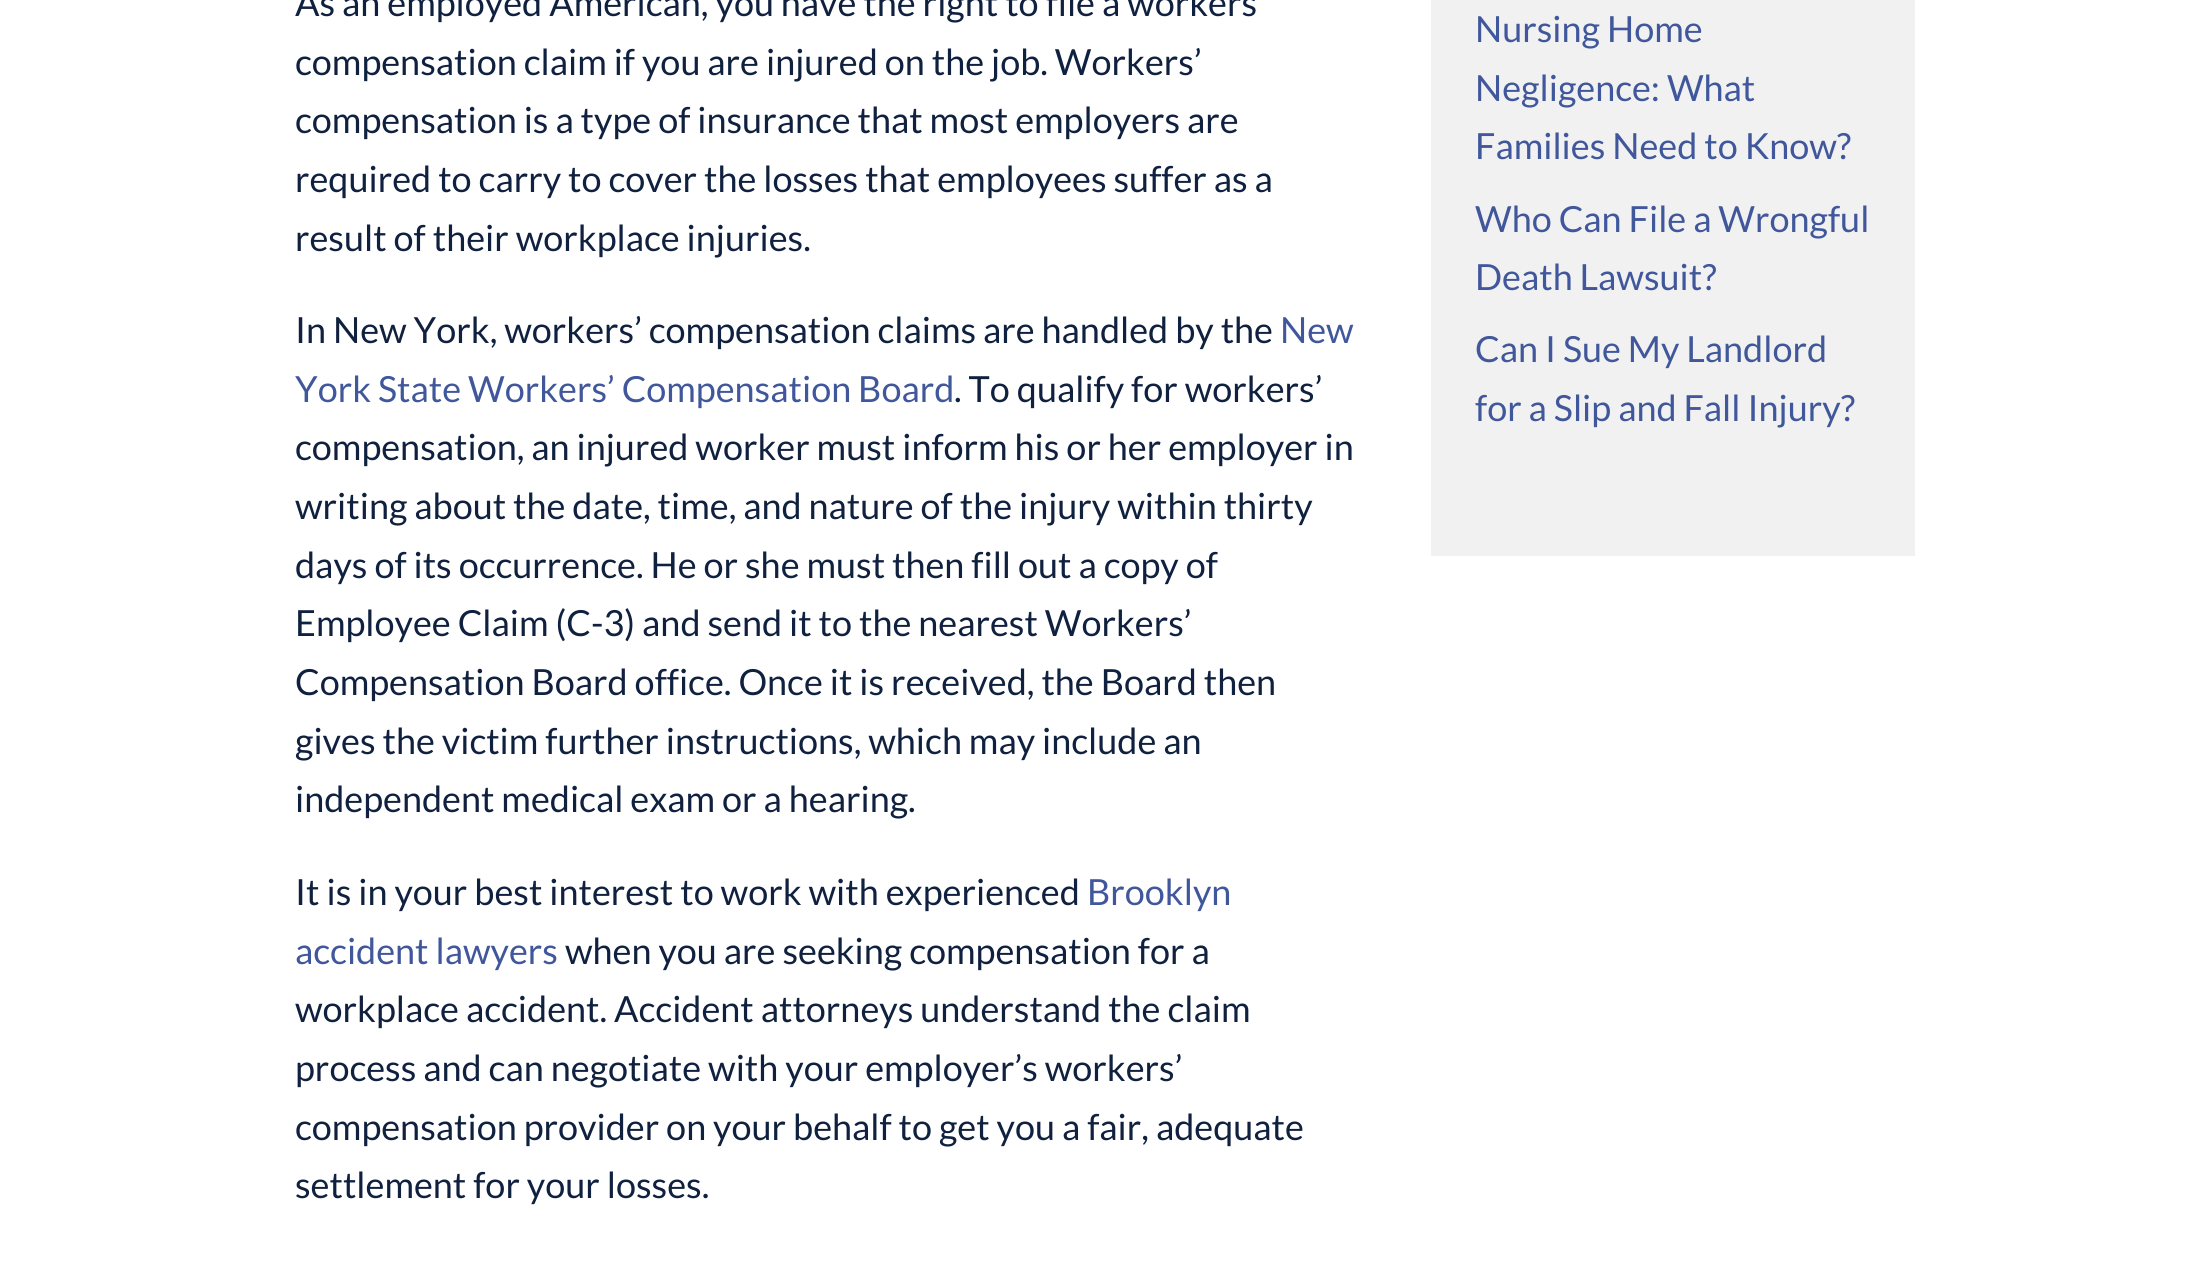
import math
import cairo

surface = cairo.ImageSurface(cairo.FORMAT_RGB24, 2208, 1282)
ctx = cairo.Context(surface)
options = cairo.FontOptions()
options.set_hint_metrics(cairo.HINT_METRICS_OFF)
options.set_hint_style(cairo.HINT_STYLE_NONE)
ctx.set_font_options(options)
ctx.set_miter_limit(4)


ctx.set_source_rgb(1, 1, 1)
ctx.paint()
ctx.select_font_face("Lato")
ctx.set_font_size(36)
ctx.set_source_rgb(0.063, 0.129, 0.251)
ctx.move_to(295, 16)
ctx.show_text("As an employed American, you have the right to file a workers")
ctx.move_to(295, 75)
ctx.show_text("compensation claim if you are injured on the job. Workers’")
ctx.move_to(295, 133)
ctx.show_text("compensation is a type of insurance that most employers are")
ctx.move_to(295, 192)
ctx.show_text("required to carry to cover the losses that employees suffer as a")
ctx.move_to(295, 251)
ctx.show_text("result of their workplace injuries.")
ctx.move_to(295, 343)
ctx.show_text("In New York, workers’ compensation claims are handled by the")
ctx.set_source_rgb(0.251, 0.341, 0.608)
ctx.move_to(1280, 343)
ctx.show_text("New")
ctx.move_to(295, 402)
ctx.show_text("York State Workers’ Compensation Board")
ctx.set_source_rgb(0.063, 0.129, 0.251)
ctx.move_to(954, 402)
ctx.show_text(". To qualify for workers’")
ctx.move_to(295, 460)
ctx.show_text("compensation, an injured worker must inform his or her employer in")
ctx.move_to(295, 519)
ctx.show_text("writing about the date, time, and nature of the injury within thirty")
ctx.move_to(295, 578)
ctx.show_text("days of its occurrence. He or she must then fill out a copy of")
ctx.move_to(295, 636)
ctx.show_text("Employee Claim (C-3) and send it to the nearest Workers’")
ctx.move_to(295, 695)
ctx.show_text("Compensation Board office. Once it is received, the Board then")
ctx.move_to(295, 754)
ctx.show_text("gives the victim further instructions, which may include an")
ctx.move_to(295, 812)
ctx.show_text("independent medical exam or a hearing.")
ctx.move_to(295, 905)
ctx.show_text("It is in your best interest to work with experienced")
ctx.set_source_rgb(0.251, 0.341, 0.608)
ctx.move_to(1087, 905)
ctx.show_text("Brooklyn")
ctx.move_to(295, 964)
ctx.show_text("accident lawyers")
ctx.set_source_rgb(0.063, 0.129, 0.251)
ctx.move_to(565, 964)
ctx.show_text("when you are seeking compensation for a")
ctx.move_to(295, 1022)
ctx.show_text("workplace accident. Accident attorneys understand the claim")
ctx.move_to(295, 1081)
ctx.show_text("process and can negotiate with your employer’s workers’")
ctx.move_to(295, 1140)
ctx.show_text("compensation provider on your behalf to get you a fair, adequate")
ctx.move_to(295, 1198)
ctx.show_text("settlement for your losses.")
ctx.set_source_rgb(0.945, 0.945, 0.945)
ctx.rectangle(1431, 0, 484, 556)
ctx.fill()
ctx.set_source_rgb(0.251, 0.341, 0.608)
ctx.move_to(1475, 42)
ctx.show_text("Nursing Home")
ctx.move_to(1475, 101)
ctx.show_text("Negligence: What")
ctx.move_to(1475, 159)
ctx.show_text("Families Need to Know?")
ctx.move_to(1475, 232)
ctx.show_text("Who Can File a Wrongful")
ctx.move_to(1475, 290)
ctx.show_text("Death Lawsuit?")
ctx.move_to(1475, 362)
ctx.show_text("Can I Sue My Landlord")
ctx.move_to(1475, 421)
ctx.show_text("for a Slip and Fall Injury?")
surface.write_to_png("page.png")
